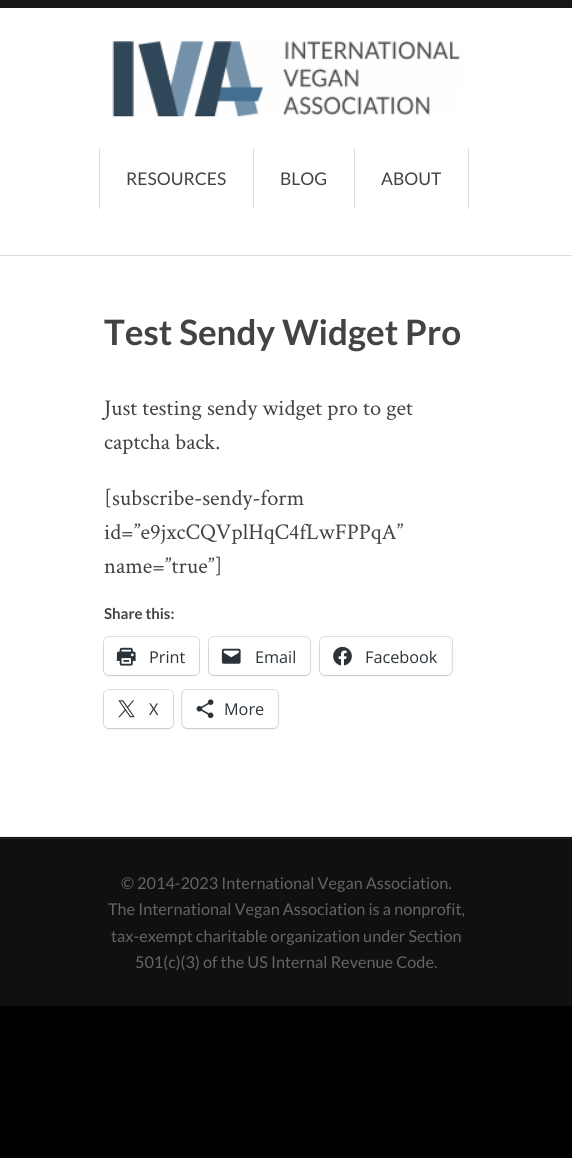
import math
import cairo

surface = cairo.ImageSurface(cairo.FORMAT_RGB24, 572, 1158)
ctx = cairo.Context(surface)
options = cairo.FontOptions()
options.set_hint_metrics(cairo.HINT_METRICS_OFF)
options.set_hint_style(cairo.HINT_STYLE_NONE)
ctx.set_font_options(options)
ctx.set_miter_limit(4)


def round_rect(x, y, w, h, r):
    ctx.new_sub_path()
    for i, (u, v) in enumerate([(x + w - r, y + h - r), (x + r, y + h - r), (x + r, y + r), (x + w - r, y + r)]):
        ctx.arc(u, v, r, i * math.pi / 2, (i + 1) * math.pi / 2)
    ctx.close_path()


def shadow(x, y, w, h, r, blur, alpha):
    ctx.push_group_with_content(cairo.CONTENT_ALPHA)
    ctx.set_operator(cairo.OPERATOR_SOURCE)
    for i in range(15, -16, -2):
        e = blur * i / 6
        if min(w, h) + 2 * e > 0:
            ctx.set_source_rgba(0, 0, 0, alpha * math.erfc((i - 1) / 8.5) / 2)
            round_rect(x - e, y - e, w + 2 * e, h + 2 * e, max(0, min(r + e + blur * .6, min(w, h) / 2 + e)))
            ctx.fill()
    ctx.mask(ctx.pop_group())


def picture(path, x, y, w, h):
    ctx.save()
    ctx.set_source_surface(cairo.ImageSurface.create_from_png(path), x, y)
    ctx.rectangle(x, y, w, h)
    ctx.fill()
    ctx.restore()


ctx.set_source_rgb(0, 0, 0)
ctx.paint()
ctx.set_source_rgb(1, 1, 1)
ctx.rectangle(0, 8, 572, 828)
ctx.fill()
ctx.set_source_rgb(0.871, 0.871, 0.871)
ctx.rectangle(0, 255, 572, 1)
ctx.fill()
ctx.set_source_rgb(0.094, 0.094, 0.094)
ctx.rectangle(0, 0, 572, 8)
ctx.fill()
picture("img1.png", 112, 41, 349, 76)
ctx.set_source_rgb(0.871, 0.871, 0.871)
ctx.rectangle(99, 148, 1, 61)
ctx.fill()
ctx.rectangle(253, 148, 1, 61)
ctx.fill()
ctx.select_font_face("Lato")
ctx.set_font_size(17.5)
ctx.set_source_rgb(0.263, 0.263, 0.263)
ctx.move_to(126, 185)
ctx.show_text("RESOURCES")
ctx.set_source_rgb(0.871, 0.871, 0.871)
ctx.rectangle(354, 148, 1, 61)
ctx.fill()
ctx.set_source_rgb(0.263, 0.263, 0.263)
ctx.move_to(280, 185)
ctx.show_text("BLOG")
ctx.set_source_rgb(0.871, 0.871, 0.871)
ctx.rectangle(468, 148, 1, 61)
ctx.fill()
ctx.set_source_rgb(0.263, 0.263, 0.263)
ctx.move_to(381, 185)
ctx.show_text("ABOUT")
ctx.select_font_face("Lato", cairo.FONT_SLANT_NORMAL, cairo.FONT_WEIGHT_BOLD)
ctx.set_font_size(35)
ctx.move_to(104, 345)
ctx.show_text("Test Sendy Widget Pro")
ctx.select_font_face("Crimson Text")
ctx.set_font_size(22.5)
ctx.move_to(104, 415)
ctx.show_text("Just testing sendy widget pro to get")
ctx.move_to(104, 449)
ctx.show_text("captcha back.")
ctx.move_to(104, 505)
ctx.show_text("[subscribe-sendy-form")
ctx.move_to(104, 539)
ctx.show_text("id=”e9jxcCQVplHqC4fLwFPPqA”")
ctx.move_to(104, 573)
ctx.show_text("name=”true”]")
ctx.select_font_face("Lato", cairo.FONT_SLANT_NORMAL, cairo.FONT_WEIGHT_BOLD)
ctx.set_font_size(15)
ctx.move_to(104, 619)
ctx.show_text("Share this:")
round_rect(103.5, 636.5, 96, 39, 5.5)
ctx.set_source_rgb(0.878, 0.878, 0.878)
ctx.set_line_width(1)
ctx.stroke()
ctx.set_source_rgb(0, 0, 0)
shadow(104, 639, 95, 37, 5, 1, 0.12)
ctx.set_source_rgb(1, 1, 1)
round_rect(104, 638, 95, 37, 5)
ctx.fill()
picture("img2.png", 116, 647, 20, 19)
ctx.select_font_face("Open Sans")
ctx.set_font_size(16.25)
ctx.set_source_rgb(0.173, 0.2, 0.22)
ctx.move_to(149, 663)
ctx.show_text("Print")
round_rect(208.5, 636.5, 102, 39, 5.5)
ctx.set_source_rgb(0.878, 0.878, 0.878)
ctx.stroke()
ctx.set_source_rgb(0, 0, 0)
shadow(209, 639, 101, 37, 5, 1, 0.12)
ctx.set_source_rgb(1, 1, 1)
round_rect(209, 638, 101, 37, 5)
ctx.fill()
picture("img3.png", 221, 648, 20, 16)
ctx.set_source_rgb(0.173, 0.2, 0.22)
ctx.move_to(255, 663)
ctx.show_text("Email")
round_rect(319.5, 636.5, 133, 39, 5.5)
ctx.set_source_rgb(0.878, 0.878, 0.878)
ctx.stroke()
ctx.set_source_rgb(0, 0, 0)
shadow(320, 639, 131, 37, 5, 1, 0.12)
ctx.set_source_rgb(1, 1, 1)
round_rect(320, 638, 131, 37, 5)
ctx.fill()
picture("img4.png", 333, 646, 19, 20)
ctx.set_source_rgb(0.173, 0.2, 0.22)
ctx.move_to(365, 663)
ctx.show_text("Facebook")
round_rect(103.5, 689.5, 70, 39, 5.5)
ctx.set_source_rgb(0.878, 0.878, 0.878)
ctx.stroke()
ctx.set_source_rgb(0, 0, 0)
shadow(104, 691, 69, 38, 5, 1, 0.12)
ctx.set_source_rgb(1, 1, 1)
round_rect(104, 690, 69, 38, 5)
ctx.fill()
picture("img5.png", 118, 700, 17, 18)
ctx.set_source_rgb(0.173, 0.2, 0.22)
ctx.move_to(149, 715)
ctx.show_text("X")
round_rect(181.5, 689.5, 97, 39, 5.5)
ctx.set_source_rgb(0.878, 0.878, 0.878)
ctx.stroke()
ctx.set_source_rgb(0, 0, 0)
shadow(183, 691, 95, 38, 5, 1, 0.12)
ctx.set_source_rgb(1, 1, 1)
round_rect(183, 690, 95, 38, 5)
ctx.fill()
picture("img6.png", 196, 699, 18, 20)
ctx.set_source_rgb(0.173, 0.2, 0.22)
ctx.move_to(224, 715)
ctx.show_text("More")
ctx.set_source_rgb(0.086, 0.086, 0.086)
ctx.rectangle(0, 837, 572, 1)
ctx.fill()
ctx.set_source_rgb(0.933, 0.933, 0.933)
ctx.rectangle(0, 836, 572, 1)
ctx.fill()
ctx.set_source_rgb(0.063, 0.063, 0.063)
ctx.rectangle(0, 839, 572, 167)
ctx.fill()
ctx.set_source_rgb(0.125, 0.125, 0.125)
ctx.rectangle(0, 838, 572, 1)
ctx.fill()
ctx.select_font_face("Lato")
ctx.set_source_rgb(0.4, 0.388, 0.392)
ctx.move_to(121, 889)
ctx.show_text("© 2014-2023 International Vegan Association.")
ctx.move_to(108, 915)
ctx.show_text("The International Vegan Association is a nonprofit,")
ctx.move_to(111, 942)
ctx.show_text("tax-exempt charitable organization under Section")
ctx.move_to(135, 968)
ctx.show_text("501(c)(3) of the US Internal Revenue Code.")
surface.write_to_png("page.png")
